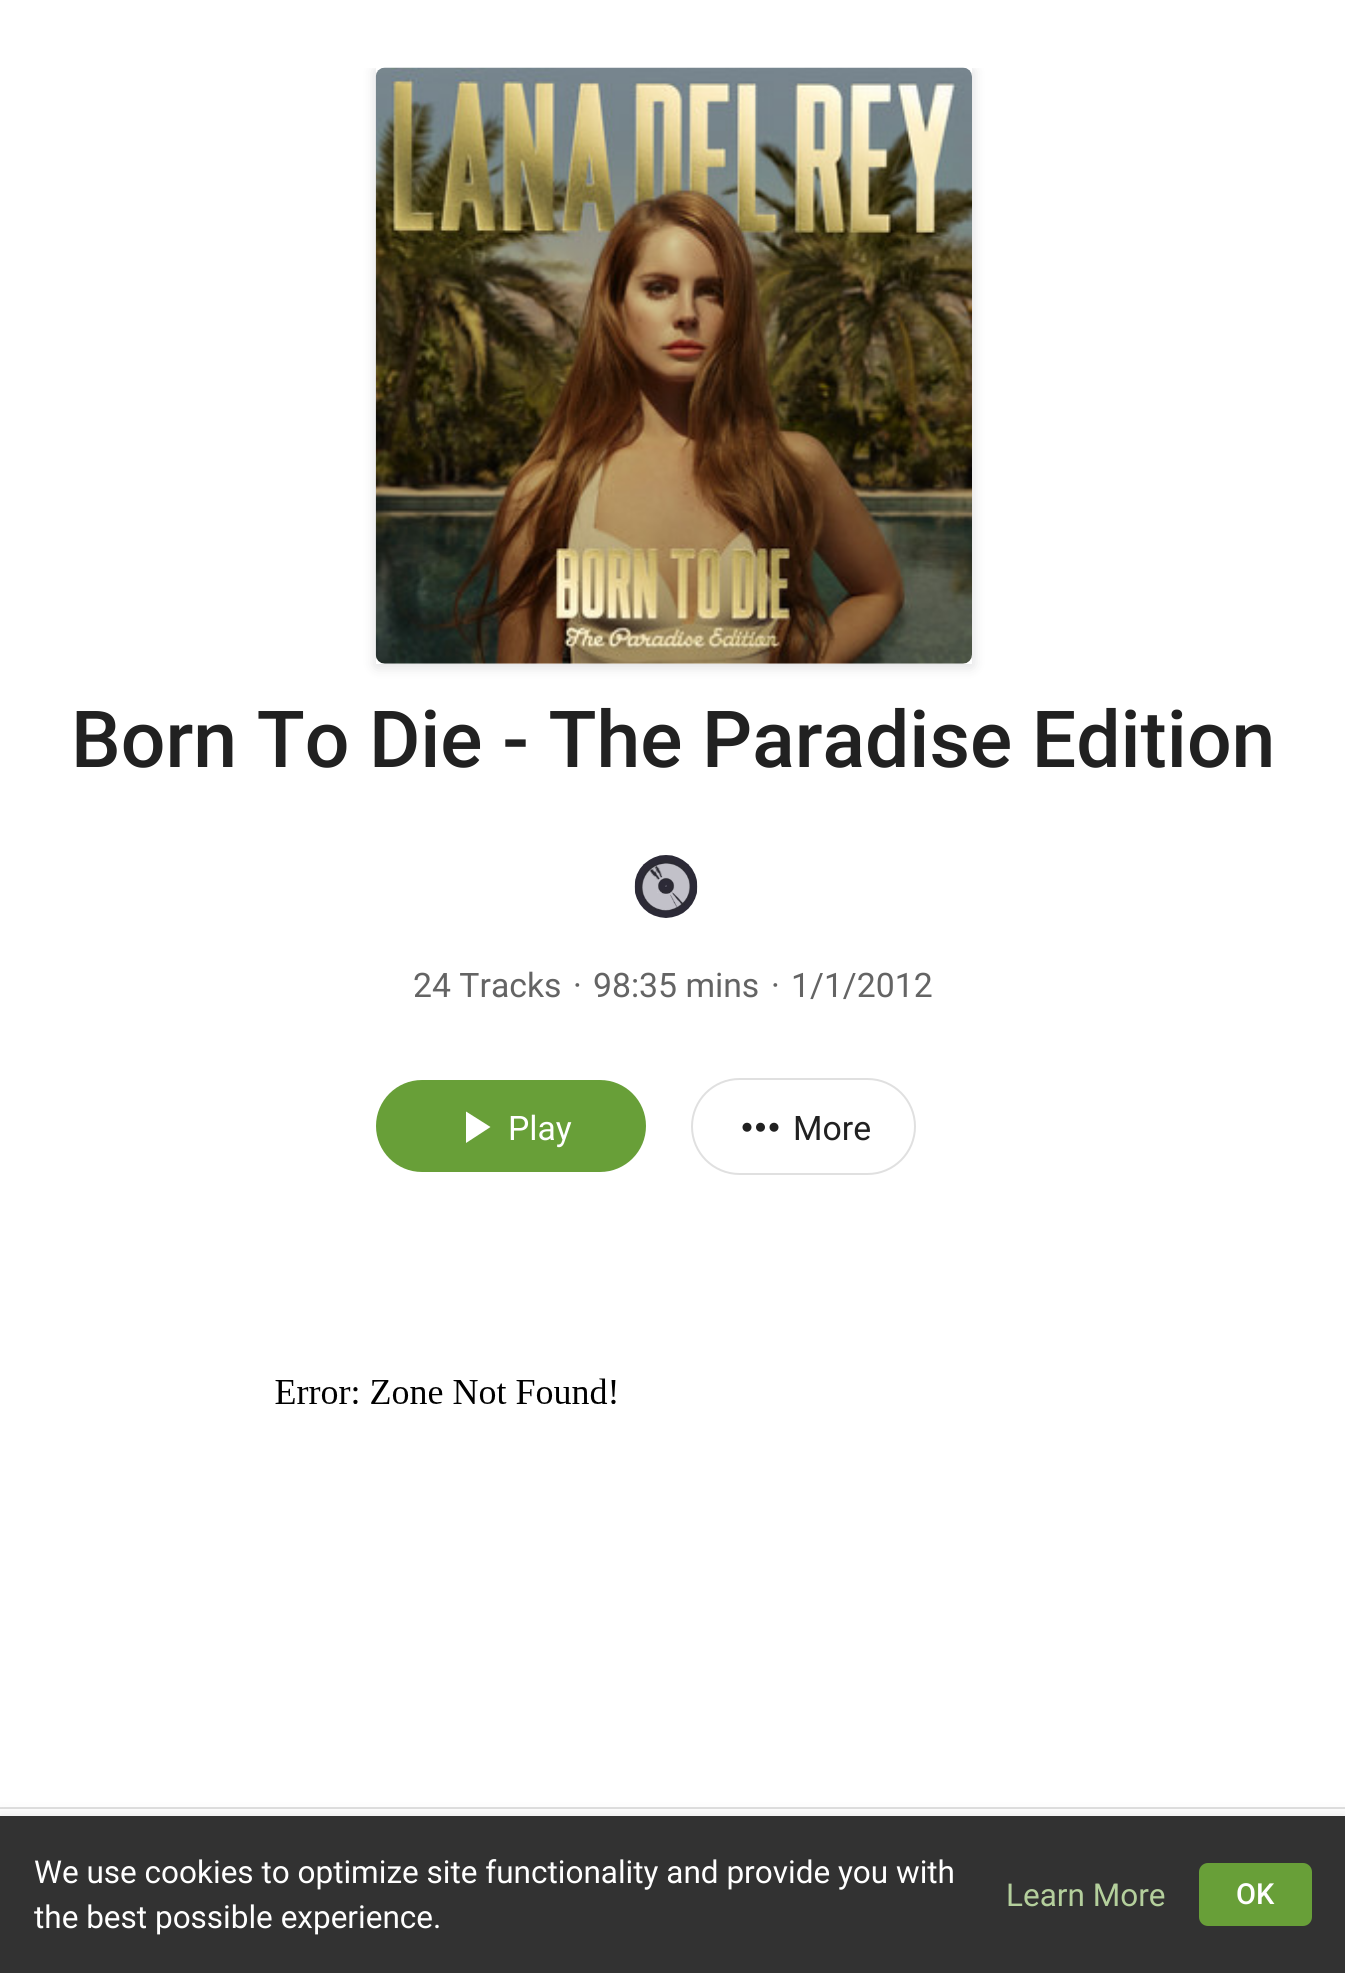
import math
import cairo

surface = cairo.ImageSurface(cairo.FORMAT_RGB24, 1345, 1973)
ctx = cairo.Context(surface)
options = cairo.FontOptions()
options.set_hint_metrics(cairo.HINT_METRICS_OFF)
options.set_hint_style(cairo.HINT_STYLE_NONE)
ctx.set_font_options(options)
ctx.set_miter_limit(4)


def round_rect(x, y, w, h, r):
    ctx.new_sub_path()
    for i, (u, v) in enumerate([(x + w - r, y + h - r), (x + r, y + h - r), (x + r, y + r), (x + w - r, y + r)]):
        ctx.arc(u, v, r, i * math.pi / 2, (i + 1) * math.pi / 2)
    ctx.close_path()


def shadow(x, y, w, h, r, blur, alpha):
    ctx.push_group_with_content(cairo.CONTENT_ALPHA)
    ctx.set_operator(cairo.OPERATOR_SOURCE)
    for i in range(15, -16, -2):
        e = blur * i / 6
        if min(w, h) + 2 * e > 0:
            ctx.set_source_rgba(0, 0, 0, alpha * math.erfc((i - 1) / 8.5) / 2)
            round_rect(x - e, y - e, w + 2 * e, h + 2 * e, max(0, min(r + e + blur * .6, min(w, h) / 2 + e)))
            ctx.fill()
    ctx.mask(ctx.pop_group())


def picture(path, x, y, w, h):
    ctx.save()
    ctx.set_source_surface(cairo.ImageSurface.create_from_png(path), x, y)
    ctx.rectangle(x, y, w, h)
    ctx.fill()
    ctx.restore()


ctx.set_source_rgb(1, 1, 1)
ctx.paint()
ctx.save()
ctx.rectangle(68, 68, 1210, 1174)
ctx.clip()
ctx.set_fill_rule(cairo.FILL_RULE_EVEN_ODD)
ctx.new_path()
ctx.move_to(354, 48)
ctx.line_to(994, 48)
ctx.line_to(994, 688)
ctx.line_to(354, 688)
ctx.close_path()
ctx.move_to(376, 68)
ctx.line_to(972, 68)
ctx.line_to(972, 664)
ctx.line_to(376, 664)
ctx.close_path()
ctx.clip()
ctx.set_source_rgb(0.098, 0.098, 0.133)
shadow(376, 70, 596, 596, 0, 7, 0.16)
ctx.restore()
ctx.set_source_rgb(1, 1, 1)
round_rect(376, 68, 596, 596, 9)
ctx.fill()
picture("img1.png", 375, 67, 597, 597)
ctx.select_font_face("Roboto Medium")
ctx.set_font_size(78.75)
ctx.set_source_rgb(0.129, 0.129, 0.129)
ctx.move_to(71, 767)
ctx.show_text("Born To Die - The Paradise Edition")
picture("img2.png", 634, 855, 64, 63)
ctx.select_font_face("Roboto")
ctx.set_font_size(33.75)
ctx.set_source_rgb(0.392, 0.392, 0.392)
ctx.move_to(413, 997)
ctx.show_text("24 Tracks")
ctx.move_to(573, 997)
ctx.show_text("·")
ctx.move_to(593, 997)
ctx.show_text("98:35 mins")
ctx.move_to(771, 997)
ctx.show_text("·")
ctx.move_to(791, 997)
ctx.show_text("1/1/2012")
ctx.set_source_rgb(0.408, 0.624, 0.22)
round_rect(376, 1080, 270, 92, 46)
ctx.fill()
ctx.set_source_rgb(1, 1, 1)
ctx.new_path()
ctx.move_to(466, 1111.5)
ctx.line_to(466, 1143)
ctx.line_to(490.5, 1127)
ctx.close_path()
ctx.fill()
ctx.move_to(508, 1140)
ctx.show_text("Play")
round_rect(692, 1079, 223, 95, 47.5)
ctx.set_source_rgb(0.878, 0.878, 0.878)
ctx.stroke()
picture("img3.png", 742, 1122, 37, 10)
ctx.set_source_rgb(0.129, 0.129, 0.129)
ctx.move_to(793, 1140)
ctx.show_text("More")
picture("img4.png", 275, 1378, 341, 26)
ctx.set_source_rgb(0.878, 0.878, 0.878)
ctx.rectangle(0, 1807, 1345, 2)
ctx.fill()
ctx.set_source_rgb(0, 0, 0)
shadow(0, 1818, 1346, 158, 0, 9, 0.12)
ctx.set_source_rgb(0.196, 0.196, 0.196)
ctx.rectangle(0, 1816, 1345, 157)
ctx.fill()
ctx.set_font_size(31.5)
ctx.set_source_rgb(1, 1, 1)
ctx.move_to(34, 1883)
ctx.show_text("We use cookies to optimize site functionality and provide you with")
ctx.move_to(34, 1928)
ctx.show_text("the best possible experience.")
ctx.set_source_rgb(0.706, 0.812, 0.612)
ctx.move_to(1006, 1906)
ctx.show_text("Learn More")
ctx.set_source_rgb(0.408, 0.624, 0.22)
round_rect(1199, 1863, 113, 63, 9)
ctx.fill()
ctx.select_font_face("Roboto Medium")
ctx.set_font_size(29)
ctx.set_source_rgb(1, 1, 1)
ctx.move_to(1236, 1904)
ctx.show_text("OK")
surface.write_to_png("page.png")
